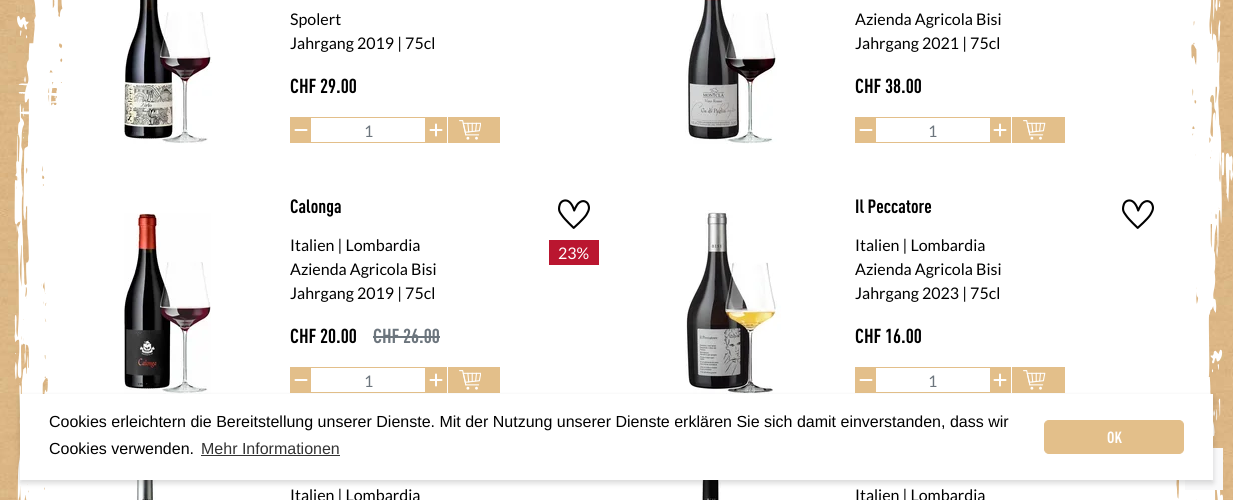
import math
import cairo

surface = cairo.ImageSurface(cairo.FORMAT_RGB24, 1233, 500)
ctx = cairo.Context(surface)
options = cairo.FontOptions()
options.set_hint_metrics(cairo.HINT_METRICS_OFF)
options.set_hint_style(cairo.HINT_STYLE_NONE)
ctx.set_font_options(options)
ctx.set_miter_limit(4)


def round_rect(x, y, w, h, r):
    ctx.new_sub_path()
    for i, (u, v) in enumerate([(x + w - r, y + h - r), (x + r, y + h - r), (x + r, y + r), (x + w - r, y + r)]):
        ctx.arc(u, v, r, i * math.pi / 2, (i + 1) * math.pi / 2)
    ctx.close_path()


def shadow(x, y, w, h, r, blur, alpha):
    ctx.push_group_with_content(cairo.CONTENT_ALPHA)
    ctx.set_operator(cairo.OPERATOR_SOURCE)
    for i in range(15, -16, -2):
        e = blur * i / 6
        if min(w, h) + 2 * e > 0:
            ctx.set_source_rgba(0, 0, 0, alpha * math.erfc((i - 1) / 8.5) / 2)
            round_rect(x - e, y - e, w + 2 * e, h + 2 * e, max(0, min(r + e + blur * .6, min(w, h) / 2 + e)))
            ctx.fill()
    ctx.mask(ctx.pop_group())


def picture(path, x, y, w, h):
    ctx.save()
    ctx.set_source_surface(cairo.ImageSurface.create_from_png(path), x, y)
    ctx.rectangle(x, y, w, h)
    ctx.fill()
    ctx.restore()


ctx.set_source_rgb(1, 1, 1)
ctx.paint()
picture("img1.png", 0, 0, 1233, 500)
picture("img2.png", 14, 0, 1219, 500)
picture("img3.png", 124, 0, 88, 144)
ctx.select_font_face("Lato")
ctx.set_font_size(16)
ctx.set_source_rgb(0, 0, 0)
ctx.move_to(290, 25)
ctx.show_text("Spolert")
ctx.move_to(290, 49)
ctx.show_text("Jahrgang 2019 | 75cl")
ctx.select_font_face("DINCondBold", cairo.FONT_SLANT_NORMAL, cairo.FONT_WEIGHT_BOLD)
ctx.set_font_size(20)
ctx.move_to(290, 93)
ctx.show_text("CHF 29.00")
ctx.set_source_rgb(0.89, 0.749, 0.541)
ctx.rectangle(290, 117, 20, 26)
ctx.fill()
picture("img4.png", 294, 129, 14, 2)
ctx.rectangle(310.5, 117.5, 115, 25)
ctx.set_line_width(1)
ctx.stroke()
ctx.select_font_face("Lato")
ctx.set_font_size(16)
ctx.set_source_rgb(0.424, 0.459, 0.49)
ctx.move_to(364, 137)
ctx.show_text("1")
ctx.set_source_rgb(0.89, 0.749, 0.541)
ctx.rectangle(426, 117, 21, 26)
ctx.fill()
picture("img5.png", 429, 123, 14, 14)
ctx.rectangle(448, 117, 52, 26)
ctx.fill()
picture("img6.png", 459, 120, 22, 20)
picture("img7.png", 685, 0, 92, 144)
ctx.set_source_rgb(0, 0, 0)
ctx.move_to(855, 25)
ctx.show_text("Azienda Agricola Bisi")
ctx.move_to(855, 49)
ctx.show_text("Jahrgang 2021 | 75cl")
ctx.select_font_face("DINCondBold", cairo.FONT_SLANT_NORMAL, cairo.FONT_WEIGHT_BOLD)
ctx.set_font_size(20)
ctx.move_to(855, 93)
ctx.show_text("CHF 38.00")
ctx.set_source_rgb(0.89, 0.749, 0.541)
ctx.rectangle(855, 117, 20, 26)
ctx.fill()
picture("img4.png", 859, 129, 14, 2)
ctx.rectangle(875.5, 117.5, 115, 25)
ctx.stroke()
ctx.select_font_face("Lato")
ctx.set_font_size(16)
ctx.set_source_rgb(0.424, 0.459, 0.49)
ctx.move_to(928, 137)
ctx.show_text("1")
ctx.set_source_rgb(0.89, 0.749, 0.541)
ctx.rectangle(991, 117, 20, 26)
ctx.fill()
picture("img5.png", 993, 123, 14, 14)
ctx.rectangle(1012, 117, 53, 26)
ctx.fill()
picture("img8.png", 1023, 120, 23, 20)
ctx.select_font_face("DINCondBold", cairo.FONT_SLANT_NORMAL, cairo.FONT_WEIGHT_BOLD)
ctx.set_font_size(19)
ctx.set_source_rgb(0, 0, 0)
ctx.move_to(290, 213)
ctx.show_text("Calonga")
ctx.select_font_face("Lato")
ctx.set_font_size(16)
ctx.move_to(290, 251)
ctx.show_text("Italien | Lombardia")
ctx.move_to(290, 275)
ctx.show_text("Azienda Agricola Bisi")
ctx.move_to(290, 299)
ctx.show_text("Jahrgang 2019 | 75cl")
ctx.set_source_rgb(0.729, 0.086, 0.188)
ctx.rectangle(549, 240, 50, 25)
ctx.fill()
ctx.set_source_rgb(1, 1, 1)
ctx.move_to(558, 259)
ctx.show_text("23%")
ctx.select_font_face("DINCondBold", cairo.FONT_SLANT_NORMAL, cairo.FONT_WEIGHT_BOLD)
ctx.set_font_size(20)
ctx.set_source_rgb(0, 0, 0)
ctx.move_to(290, 343)
ctx.show_text("CHF 20.00")
ctx.set_source_rgb(0.424, 0.459, 0.49)
ctx.move_to(373, 343)
ctx.show_text("CHF 26.00")
ctx.rectangle(373, 336, 67, 2)
ctx.fill()
ctx.set_source_rgb(0.89, 0.749, 0.541)
ctx.rectangle(290, 367, 20, 26)
ctx.fill()
picture("img4.png", 294, 379, 14, 2)
ctx.rectangle(310.5, 367.5, 115, 25)
ctx.stroke()
ctx.select_font_face("Lato")
ctx.set_font_size(16)
ctx.set_source_rgb(0.424, 0.459, 0.49)
ctx.move_to(364, 387)
ctx.show_text("1")
ctx.set_source_rgb(0.89, 0.749, 0.541)
ctx.rectangle(426, 367, 21, 26)
ctx.fill()
picture("img5.png", 429, 373, 14, 14)
ctx.rectangle(448, 367, 52, 26)
ctx.fill()
picture("img6.png", 459, 370, 22, 20)
picture("img9.png", 124, 213, 87, 181)
picture("img10.png", 558, 199, 32, 30)
picture("img11.png", 685, 210, 96, 184)
ctx.select_font_face("DINCondBold", cairo.FONT_SLANT_NORMAL, cairo.FONT_WEIGHT_BOLD)
ctx.set_font_size(19)
ctx.set_source_rgb(0, 0, 0)
ctx.move_to(855, 213)
ctx.show_text("Il Peccatore")
ctx.select_font_face("Lato")
ctx.set_font_size(16)
ctx.move_to(855, 251)
ctx.show_text("Italien | Lombardia")
ctx.move_to(855, 275)
ctx.show_text("Azienda Agricola Bisi")
ctx.move_to(855, 299)
ctx.show_text("Jahrgang 2023 | 75cl")
ctx.select_font_face("DINCondBold", cairo.FONT_SLANT_NORMAL, cairo.FONT_WEIGHT_BOLD)
ctx.set_font_size(20)
ctx.move_to(855, 343)
ctx.show_text("CHF 16.00")
ctx.set_source_rgb(0.89, 0.749, 0.541)
ctx.rectangle(855, 367, 20, 26)
ctx.fill()
picture("img4.png", 859, 379, 14, 2)
ctx.rectangle(875.5, 367.5, 115, 25)
ctx.stroke()
ctx.select_font_face("Lato")
ctx.set_font_size(16)
ctx.set_source_rgb(0.424, 0.459, 0.49)
ctx.move_to(928, 387)
ctx.show_text("1")
ctx.set_source_rgb(0.89, 0.749, 0.541)
ctx.rectangle(991, 367, 20, 26)
ctx.fill()
picture("img5.png", 993, 373, 14, 14)
ctx.rectangle(1012, 367, 53, 26)
ctx.fill()
picture("img8.png", 1023, 370, 23, 20)
picture("img10.png", 1122, 199, 32, 30)
picture("img12.png", 136, 480, 20, 20)
ctx.set_source_rgb(0, 0, 0)
ctx.move_to(290, 501)
ctx.show_text("Italien | Lombardia")
picture("img13.png", 701, 480, 20, 20)
ctx.move_to(855, 501)
ctx.show_text("Italien | Lombardia")
ctx.set_source_rgb(0.973, 0.976, 0.98)
ctx.rectangle(1185, 448, 38, 42)
ctx.fill()
ctx.set_source_rgb(0, 0, 0)
shadow(20, 397, 1193, 86, 0, 3, 0.16)
ctx.set_source_rgb(1, 1, 1)
ctx.rectangle(20, 394, 1193, 86)
ctx.fill()
ctx.select_font_face("Liberation Sans")
ctx.set_source_rgb(0, 0, 0)
ctx.move_to(49, 427)
ctx.show_text("Cookies erleichtern die Bereitstellung unserer Dienste. Mit der Nutzung unserer Dienste erklären Sie sich damit einverstanden, dass wir")
ctx.move_to(49, 454)
ctx.show_text("Cookies verwenden.")
ctx.set_source_rgb(0.2, 0.2, 0.2)
ctx.move_to(201, 454)
ctx.show_text("Mehr Informationen")
ctx.rectangle(201, 455, 139, 1)
ctx.fill()
ctx.set_source_rgb(0.89, 0.749, 0.541)
round_rect(1044.5, 420.5, 139, 33, 4.5)
ctx.fill_preserve()
ctx.stroke()
ctx.select_font_face("DINCondBold", cairo.FONT_SLANT_NORMAL, cairo.FONT_WEIGHT_BOLD)
ctx.set_source_rgb(1, 1, 1)
ctx.move_to(1107, 443)
ctx.show_text("OK")
surface.write_to_png("page.png")
